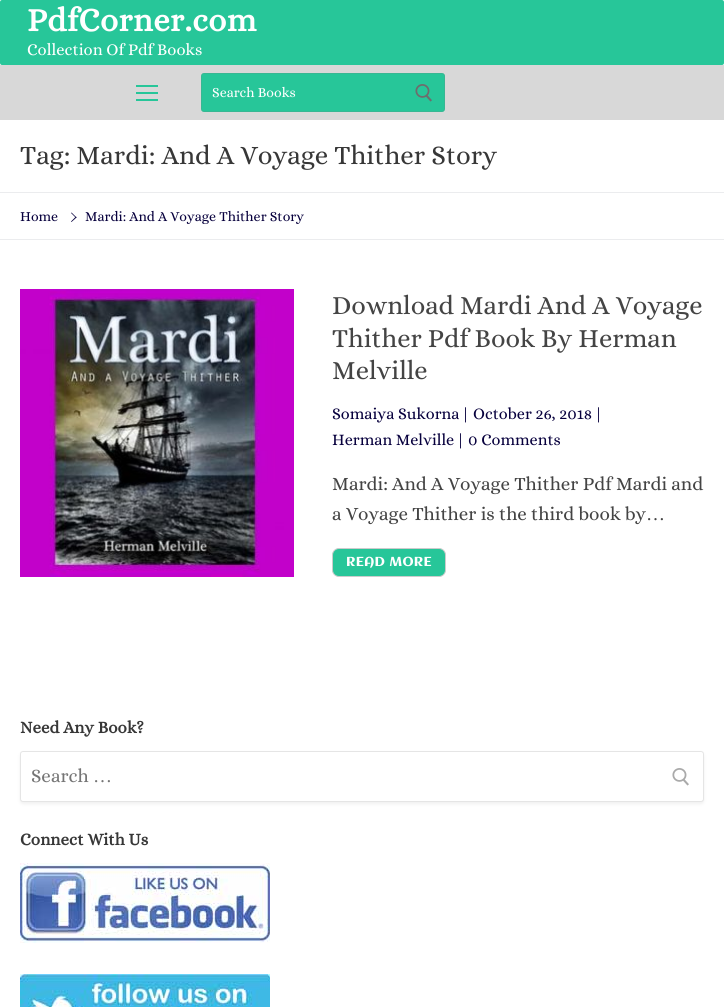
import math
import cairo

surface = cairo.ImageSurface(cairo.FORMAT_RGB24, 724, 1007)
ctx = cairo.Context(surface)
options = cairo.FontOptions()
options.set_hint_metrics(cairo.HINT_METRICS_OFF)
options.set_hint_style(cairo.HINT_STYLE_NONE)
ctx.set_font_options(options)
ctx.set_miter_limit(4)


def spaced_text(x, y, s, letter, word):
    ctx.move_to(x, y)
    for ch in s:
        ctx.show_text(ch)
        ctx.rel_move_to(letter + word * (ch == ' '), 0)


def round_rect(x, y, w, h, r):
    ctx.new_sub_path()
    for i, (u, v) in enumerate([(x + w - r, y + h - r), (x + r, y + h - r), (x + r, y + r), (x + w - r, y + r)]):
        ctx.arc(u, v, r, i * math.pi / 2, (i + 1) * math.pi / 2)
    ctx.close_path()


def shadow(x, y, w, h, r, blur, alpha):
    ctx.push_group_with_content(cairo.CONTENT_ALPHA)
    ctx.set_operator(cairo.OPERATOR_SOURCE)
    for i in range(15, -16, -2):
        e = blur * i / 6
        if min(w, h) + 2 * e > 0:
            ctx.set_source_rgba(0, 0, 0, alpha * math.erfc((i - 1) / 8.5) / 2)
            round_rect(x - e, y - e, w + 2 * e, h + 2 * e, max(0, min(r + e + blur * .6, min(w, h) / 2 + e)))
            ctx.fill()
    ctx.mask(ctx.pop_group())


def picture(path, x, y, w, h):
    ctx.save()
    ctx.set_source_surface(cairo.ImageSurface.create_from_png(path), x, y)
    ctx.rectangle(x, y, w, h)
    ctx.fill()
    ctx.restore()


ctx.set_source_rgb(1, 1, 1)
ctx.paint()
ctx.set_source_rgb(0.153, 0.776, 0.6)
round_rect(0, 0, 724, 65, 2)
ctx.fill()
ctx.select_font_face("Alice", cairo.FONT_SLANT_NORMAL, cairo.FONT_WEIGHT_BOLD)
ctx.set_font_size(33)
ctx.set_source_rgb(1, 1, 1)
spaced_text(27, 31, "PdfCorner.com", 0.4, 0)
ctx.select_font_face("Alice")
ctx.set_font_size(16.6)
ctx.move_to(27, 55)
ctx.show_text("Collection Of Pdf Books")
ctx.set_source_rgb(0.847, 0.847, 0.847)
ctx.rectangle(0, 65, 724, 55)
ctx.fill()
ctx.set_source_rgb(0.153, 0.776, 0.6)
ctx.rectangle(136, 92, 22, 2)
ctx.fill()
ctx.rectangle(136, 85, 22, 2)
ctx.fill()
ctx.rectangle(136, 99, 22, 2)
ctx.fill()
round_rect(201, 73, 244, 39, 3)
ctx.fill()
round_rect(201.5, 73.5, 243, 38, 2.5)
ctx.set_source_rgba(0.498, 0.498, 0.498, 0.2)
ctx.set_line_width(1)
ctx.stroke()
ctx.set_font_size(14)
ctx.set_source_rgb(1, 1, 1)
ctx.move_to(212, 97)
ctx.show_text("Search Books")
picture("img1.png", 415, 84, 17, 18)
ctx.set_source_rgb(0.918, 0.925, 0.933)
ctx.rectangle(0, 192, 724, 1)
ctx.fill()
ctx.set_font_size(26.9)
ctx.set_source_rgb(0.216, 0.216, 0.216)
ctx.move_to(20, 164)
ctx.show_text("Tag: Mardi: And A Voyage Thither Story")
ctx.set_source_rgb(0.918, 0.925, 0.933)
ctx.rectangle(0, 239, 724, 1)
ctx.fill()
ctx.set_font_size(14)
ctx.set_source_rgb(0.031, 0, 0.239)
ctx.move_to(20, 221)
ctx.show_text("Home")
ctx.new_path()
ctx.move_to(76.5, 217.5)
ctx.line_to(71.5, 222)
ctx.line_to(71, 221.5)
ctx.line_to(76, 216.5)
ctx.close_path()
ctx.fill()
ctx.new_path()
ctx.move_to(76.5, 217.5)
ctx.line_to(76, 218)
ctx.line_to(71, 213)
ctx.line_to(71.5, 212.5)
ctx.close_path()
ctx.fill()
ctx.move_to(85, 221)
ctx.show_text("Mardi: And A Voyage Thither Story")
picture("img2.png", 20, 289, 274, 288)
ctx.set_font_size(26.6)
ctx.set_source_rgb(0.267, 0.267, 0.267)
ctx.move_to(332, 314)
ctx.show_text("Download Mardi And A Voyage")
ctx.move_to(332, 347)
ctx.show_text("Thither Pdf Book By Herman")
ctx.move_to(332, 379)
ctx.show_text("Melville")
ctx.set_font_size(16.25)
ctx.set_source_rgb(0.031, 0, 0.239)
ctx.move_to(332, 419)
ctx.show_text("Somaiya Sukorna")
ctx.move_to(461, 419)
ctx.show_text("|")
ctx.move_to(473, 419)
ctx.show_text("October 26, 2018")
ctx.move_to(594, 419)
ctx.show_text("|")
ctx.move_to(332, 445)
ctx.show_text("Herman Melville")
ctx.move_to(456, 445)
ctx.show_text("|")
ctx.move_to(468, 445)
ctx.show_text("0 Comments")
ctx.set_font_size(19)
ctx.set_source_rgb(0.267, 0.267, 0.267)
ctx.move_to(332, 490)
ctx.show_text("Mardi: And A Voyage Thither Pdf Mardi and")
ctx.move_to(332, 520)
ctx.show_text("a Voyage Thither is the third book by")
ctx.select_font_face("Liberation Serif")
ctx.move_to(646, 520)
ctx.show_text("…")
ctx.set_source_rgb(0.153, 0.776, 0.6)
round_rect(332.5, 548.5, 113, 28, 6.5)
ctx.fill_preserve()
ctx.set_source_rgb(0.8, 0.8, 0.8)
ctx.stroke()
ctx.select_font_face("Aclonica")
ctx.set_font_size(13)
ctx.set_source_rgb(1, 1, 1)
spaced_text(346, 566, "READ MORE", 0.25, 0)
ctx.select_font_face("Alice", cairo.FONT_SLANT_NORMAL, cairo.FONT_WEIGHT_BOLD)
ctx.set_font_size(17)
ctx.set_source_rgb(0.216, 0.216, 0.216)
ctx.move_to(20, 733)
ctx.show_text("Need Any Book?")
ctx.set_source_rgb(0.498, 0.498, 0.498)
shadow(20, 753, 684, 51, 3, 1.5, 0.11)
ctx.set_source_rgb(1, 1, 1)
round_rect(20.5, 751.5, 683, 50, 2.5)
ctx.fill_preserve()
ctx.set_source_rgb(0.898, 0.898, 0.898)
ctx.stroke()
ctx.select_font_face("Alice")
ctx.set_font_size(19)
ctx.set_source_rgb(0.459, 0.459, 0.459)
ctx.move_to(31, 782)
ctx.show_text("Search")
ctx.select_font_face("Liberation Serif")
ctx.move_to(93, 782)
ctx.show_text("…")
picture("img3.png", 672, 768, 17, 18)
ctx.select_font_face("Alice", cairo.FONT_SLANT_NORMAL, cairo.FONT_WEIGHT_BOLD)
ctx.set_font_size(17)
ctx.set_source_rgb(0.216, 0.216, 0.216)
ctx.move_to(20, 845)
ctx.show_text("Connect With Us")
picture("img4.png", 20, 863, 250, 80)
picture("img5.png", 20, 974, 250, 33)
surface.write_to_png("page.png")
